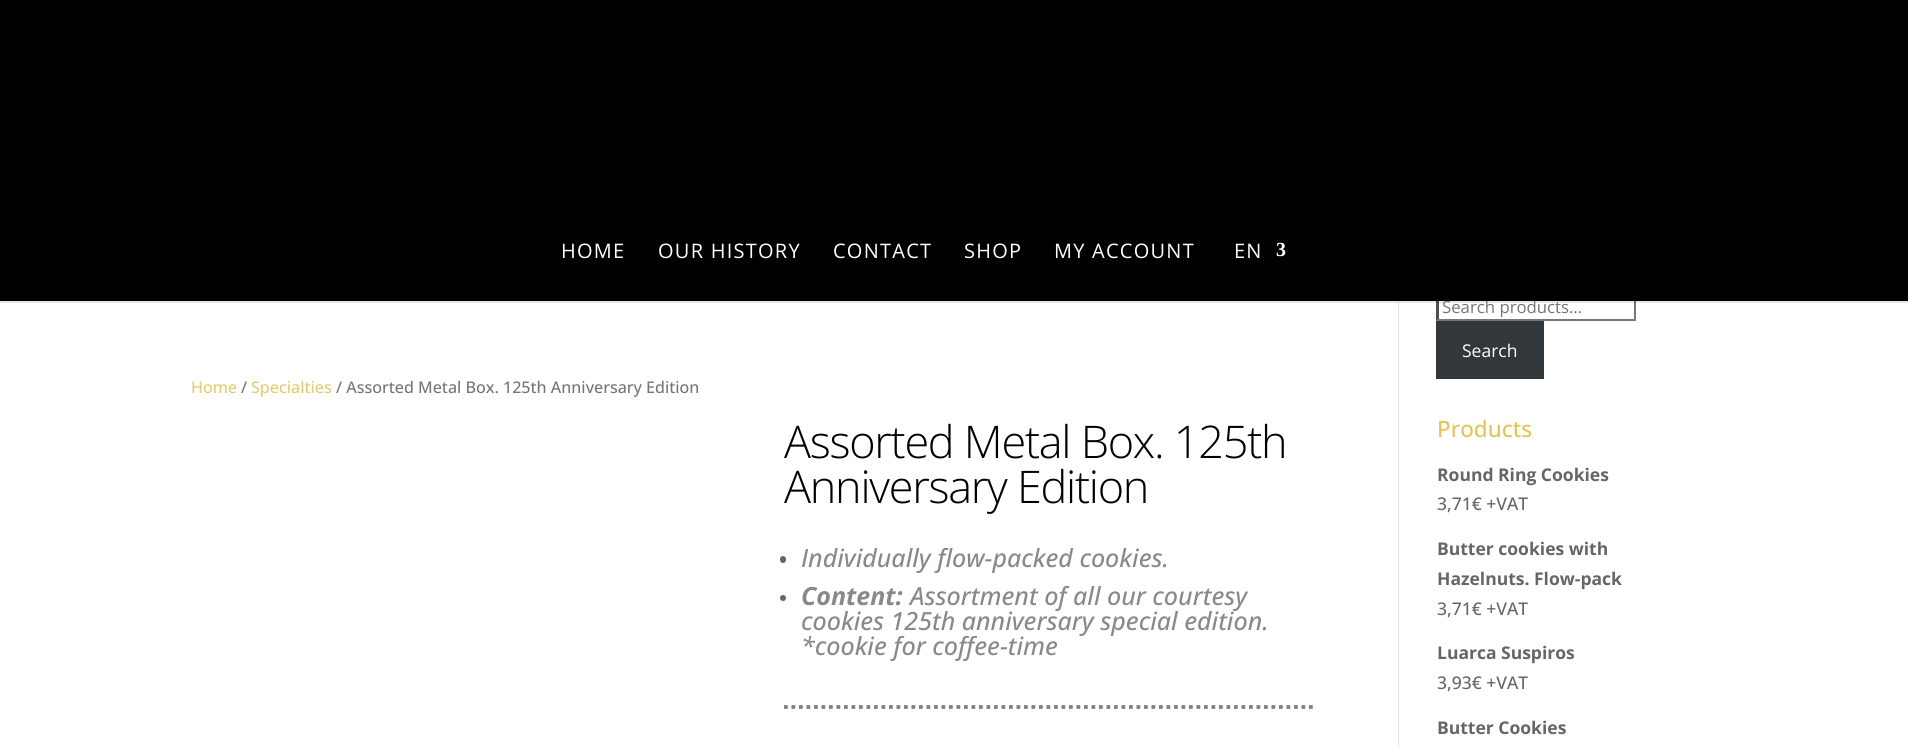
import math
import cairo

surface = cairo.ImageSurface(cairo.FORMAT_RGB24, 1908, 747)
ctx = cairo.Context(surface)
options = cairo.FontOptions()
options.set_hint_metrics(cairo.HINT_METRICS_OFF)
options.set_hint_style(cairo.HINT_STYLE_NONE)
ctx.set_font_options(options)
ctx.set_miter_limit(4)


def spaced_text(x, y, s, letter, word):
    ctx.move_to(x, y)
    for ch in s:
        ctx.show_text(ch)
        ctx.rel_move_to(letter + word * (ch == ' '), 0)


def round_rect(x, y, w, h, r):
    ctx.new_sub_path()
    for i, (u, v) in enumerate([(x + w - r, y + h - r), (x + r, y + h - r), (x + r, y + r), (x + w - r, y + r)]):
        ctx.arc(u, v, r, i * math.pi / 2, (i + 1) * math.pi / 2)
    ctx.close_path()


ctx.set_source_rgb(1, 1, 1)
ctx.paint()
ctx.set_source_rgb(0.463, 0.463, 0.463)
ctx.new_path()
ctx.move_to(1636, 291)
ctx.line_to(1636, 321)
ctx.line_to(1634, 319)
ctx.line_to(1634, 294)
ctx.close_path()
ctx.fill()
ctx.new_path()
ctx.move_to(1636, 321)
ctx.line_to(1436, 321)
ctx.line_to(1439, 319)
ctx.line_to(1634, 319)
ctx.close_path()
ctx.fill()
ctx.set_source_rgb(0.31, 0.31, 0.31)
ctx.new_path()
ctx.move_to(1436, 321)
ctx.line_to(1436, 291)
ctx.line_to(1439, 294)
ctx.line_to(1439, 319)
ctx.close_path()
ctx.fill()
ctx.set_source_rgb(0.886, 0.886, 0.886)
ctx.rectangle(1398, 301, 1, 446)
ctx.fill()
ctx.set_source_rgba(0, 0, 0, 0.1)
ctx.new_path()
ctx.move_to(0, 301)
ctx.line_to(0, 303)
ctx.line_to(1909, 303)
ctx.line_to(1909, 1)
ctx.line_to(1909, 301)
ctx.close_path()
ctx.fill()
ctx.select_font_face("Open Sans")
ctx.set_font_size(16.75)
ctx.set_source_rgb(0.459, 0.459, 0.459)
ctx.move_to(1442, 313)
ctx.show_text("Search products…")
ctx.set_source_rgb(0, 0, 0)
ctx.rectangle(0, 0, 1908, 301)
ctx.fill()
ctx.set_font_size(20)
ctx.set_source_rgb(1, 1, 1)
spaced_text(561, 258, "HOME", 1.25, 0)
spaced_text(658, 258, "OUR HISTORY", 1.25, 0)
spaced_text(833, 258, "CONTACT", 1.25, 0)
spaced_text(964, 258, "SHOP", 1.25, 0)
spaced_text(1054, 258, "MY ACCOUNT", 1.25, 0)
spaced_text(1234, 258, "EN", 1.25, 0)
ctx.select_font_face("Liberation Serif", cairo.FONT_SLANT_NORMAL, cairo.FONT_WEIGHT_BOLD)
spaced_text(1276, 256, "3", 1.25, 0)
ctx.select_font_face("Open Sans Medium")
ctx.set_font_size(16.1)
ctx.set_source_rgb(0.898, 0.792, 0.447)
ctx.move_to(191, 393)
ctx.show_text("Home")
ctx.set_source_rgb(0.459, 0.459, 0.459)
ctx.move_to(241, 393)
ctx.show_text("/")
ctx.set_source_rgb(0.898, 0.792, 0.447)
ctx.move_to(251, 393)
ctx.show_text("Specialties")
ctx.set_source_rgb(0.459, 0.459, 0.459)
ctx.move_to(336, 393)
ctx.show_text("/ Assorted Metal Box. 125th Anniversary Edition")
ctx.select_font_face("Open Sans Light")
ctx.set_font_size(45)
ctx.set_source_rgb(0, 0, 0)
spaced_text(784, 458, "Assorted Metal Box. 125th", -1.25, 0)
spaced_text(784, 503, "Anniversary Edition", -1.25, 0)
ctx.set_source_rgb(0.4, 0.4, 0.4)
round_rect(780, 556, 6, 7, 3)
ctx.fill()
ctx.select_font_face("Open Sans Medium", cairo.FONT_SLANT_ITALIC)
ctx.set_font_size(25)
ctx.set_source_rgb(0.537, 0.537, 0.537)
ctx.move_to(801, 567)
ctx.show_text("Individually flow-packed cookies.")
ctx.set_source_rgb(0.4, 0.4, 0.4)
ctx.new_path()
ctx.arc(783, 598, 3, 0, 2 * math.pi)
ctx.fill()
ctx.select_font_face("Open Sans", cairo.FONT_SLANT_ITALIC, cairo.FONT_WEIGHT_BOLD)
ctx.set_source_rgb(0.537, 0.537, 0.537)
ctx.move_to(801, 605)
ctx.show_text("Content:")
ctx.select_font_face("Open Sans Medium", cairo.FONT_SLANT_ITALIC)
ctx.move_to(910, 605)
ctx.show_text("Assortment of all our courtesy")
ctx.move_to(801, 630)
ctx.show_text("cookies 125th anniversary special edition.")
ctx.move_to(801, 655)
ctx.show_text("*cookie for coffee-time")
ctx.new_path()
ctx.move_to(784, 707)
ctx.line_to(1315, 707)
ctx.set_source_rgb(0.502, 0.502, 0.502)
ctx.set_line_width(3.8)
ctx.set_dash([3.75, 3.75])
ctx.stroke()
ctx.set_source_rgb(0.196, 0.216, 0.235)
ctx.rectangle(1436, 321, 108, 58)
ctx.fill()
ctx.select_font_face("Open Sans")
ctx.set_font_size(17.5)
ctx.set_source_rgb(1, 1, 1)
ctx.move_to(1462, 357)
ctx.show_text("Search")
ctx.select_font_face("Open Sans Medium")
ctx.set_font_size(22.5)
ctx.set_source_rgb(0.898, 0.765, 0.329)
ctx.move_to(1437, 437)
ctx.show_text("Products")
ctx.select_font_face("Open Sans", cairo.FONT_SLANT_NORMAL, cairo.FONT_WEIGHT_BOLD)
ctx.set_font_size(17.5)
ctx.set_source_rgb(0.4, 0.4, 0.4)
ctx.move_to(1437, 481)
ctx.show_text("Round Ring Cookies")
ctx.select_font_face("Open Sans Medium")
ctx.move_to(1437, 510)
ctx.show_text("3,71€ +VAT")
ctx.select_font_face("Open Sans", cairo.FONT_SLANT_NORMAL, cairo.FONT_WEIGHT_BOLD)
ctx.move_to(1437, 555)
ctx.show_text("Butter cookies with")
ctx.move_to(1437, 585)
ctx.show_text("Hazelnuts. Flow-pack")
ctx.select_font_face("Open Sans Medium")
ctx.move_to(1437, 615)
ctx.show_text("3,71€ +VAT")
ctx.select_font_face("Open Sans", cairo.FONT_SLANT_NORMAL, cairo.FONT_WEIGHT_BOLD)
ctx.move_to(1437, 659)
ctx.show_text("Luarca Suspiros")
ctx.select_font_face("Open Sans Medium")
ctx.move_to(1437, 689)
ctx.show_text("3,93€ +VAT")
ctx.select_font_face("Open Sans", cairo.FONT_SLANT_NORMAL, cairo.FONT_WEIGHT_BOLD)
ctx.move_to(1437, 734)
ctx.show_text("Butter Cookies")
surface.write_to_png("page.png")
